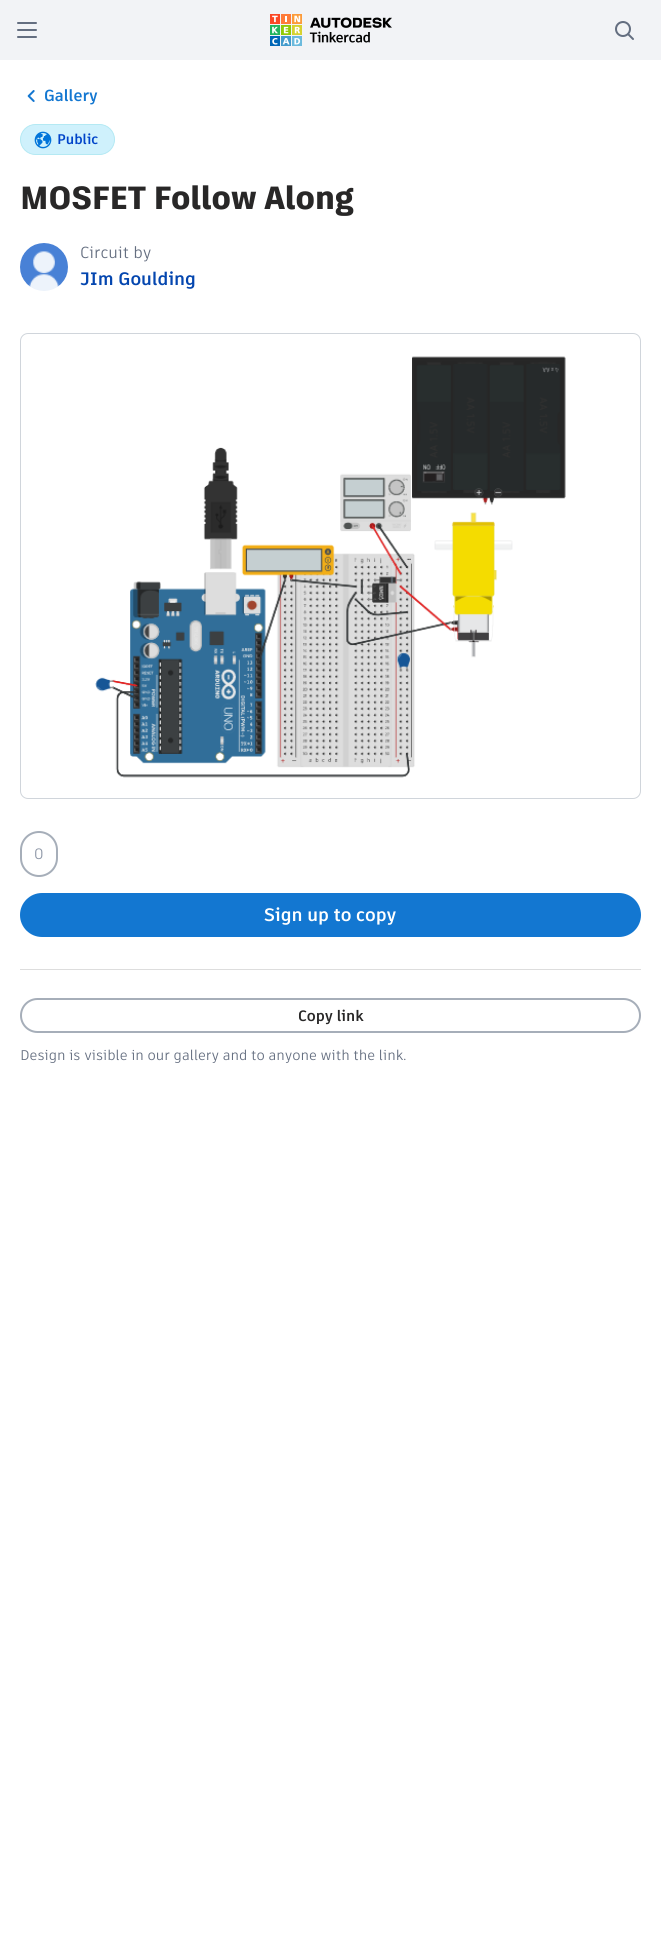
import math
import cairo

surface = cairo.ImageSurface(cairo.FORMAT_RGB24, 661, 1952)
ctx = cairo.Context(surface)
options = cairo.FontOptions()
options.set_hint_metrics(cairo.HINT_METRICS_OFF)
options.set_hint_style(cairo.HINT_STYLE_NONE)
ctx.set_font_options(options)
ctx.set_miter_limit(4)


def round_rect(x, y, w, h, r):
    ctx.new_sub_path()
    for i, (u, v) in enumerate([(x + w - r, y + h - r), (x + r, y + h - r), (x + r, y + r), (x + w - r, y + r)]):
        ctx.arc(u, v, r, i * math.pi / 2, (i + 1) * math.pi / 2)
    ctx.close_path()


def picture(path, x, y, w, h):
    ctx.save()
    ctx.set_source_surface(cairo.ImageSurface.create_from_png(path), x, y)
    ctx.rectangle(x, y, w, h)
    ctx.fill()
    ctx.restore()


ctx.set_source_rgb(1, 1, 1)
ctx.paint()
ctx.set_source_rgb(0.949, 0.953, 0.961)
ctx.rectangle(0, 0, 661, 60)
ctx.fill()
ctx.new_path()
ctx.move_to(18, 23)
ctx.line_to(36, 23)
ctx.move_to(18, 30)
ctx.line_to(36, 30)
ctx.move_to(18, 37)
ctx.line_to(36, 37)
ctx.set_source_rgb(0.392, 0.431, 0.502)
ctx.set_line_cap(cairo.LINE_CAP_ROUND)
ctx.stroke()
picture("img1.png", 270, 14, 122, 32)
picture("img2.png", 615, 21, 19, 19)
picture("img3.png", 27, 90, 8, 12)
ctx.select_font_face("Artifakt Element", cairo.FONT_SLANT_NORMAL, cairo.FONT_WEIGHT_BOLD)
ctx.set_font_size(16)
ctx.set_source_rgb(0.078, 0.467, 0.82)
ctx.move_to(44, 101)
ctx.show_text("Gallery")
ctx.set_source_rgb(0.812, 0.945, 0.988)
round_rect(20.5, 124.5, 94, 30, 15)
ctx.fill_preserve()
ctx.set_source_rgb(0.706, 0.914, 0.953)
ctx.set_line_width(1)
ctx.set_line_cap(cairo.LINE_CAP_BUTT)
ctx.stroke()
picture("img4.png", 34, 131, 18, 18)
ctx.set_font_size(14)
ctx.set_source_rgb(0, 0.267, 0.788)
ctx.move_to(57, 144)
ctx.show_text("Public")
ctx.select_font_face("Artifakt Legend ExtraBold")
ctx.set_font_size(32)
ctx.set_source_rgb(0.157, 0.153, 0.153)
ctx.move_to(20, 209)
ctx.show_text("MOSFET Follow Along")
picture("img5.png", 20, 243, 48, 48)
ctx.select_font_face("Artifakt Element")
ctx.set_font_size(16)
ctx.set_source_rgb(0.392, 0.431, 0.502)
ctx.move_to(80, 258)
ctx.show_text("Circuit by")
ctx.select_font_face("Artifakt Element", cairo.FONT_SLANT_NORMAL, cairo.FONT_WEIGHT_BOLD)
ctx.set_font_size(18)
ctx.set_source_rgb(0.016, 0.275, 0.686)
ctx.move_to(80, 285)
ctx.show_text("JIm Goulding")
round_rect(20.5, 333.5, 620, 465, 7.5)
ctx.set_source_rgb(0.816, 0.835, 0.859)
ctx.stroke()
picture("img6.png", 95, 356, 471, 422)
round_rect(21, 832, 36, 44, 18)
ctx.set_source_rgb(0.651, 0.682, 0.725)
ctx.set_line_width(2)
ctx.stroke()
ctx.select_font_face("Artifakt Element")
ctx.set_font_size(15)
ctx.set_source_rgb(0.553, 0.588, 0.651)
ctx.move_to(34, 859)
ctx.show_text("0")
ctx.set_source_rgb(0.078, 0.467, 0.82)
round_rect(20, 893, 621, 44, 22)
ctx.fill()
ctx.select_font_face("Artifakt Element", cairo.FONT_SLANT_NORMAL, cairo.FONT_WEIGHT_BOLD)
ctx.set_font_size(18)
ctx.set_source_rgb(1, 1, 1)
ctx.move_to(264, 921)
ctx.show_text("Sign up to copy")
ctx.set_source_rgb(0.867, 0.867, 0.867)
ctx.rectangle(20, 969, 621, 1)
ctx.fill()
round_rect(21, 999, 619, 33, 16.5)
ctx.set_source_rgb(0.651, 0.682, 0.725)
ctx.stroke()
ctx.set_font_size(15)
ctx.set_source_rgb(0.157, 0.153, 0.153)
ctx.move_to(298, 1021)
ctx.show_text("Copy link")
ctx.select_font_face("Artifakt Element")
ctx.set_font_size(14)
ctx.set_source_rgb(0.392, 0.431, 0.502)
ctx.move_to(20, 1060)
ctx.show_text("Design is visible in our gallery and to anyone with the link.")
surface.write_to_png("page.png")
